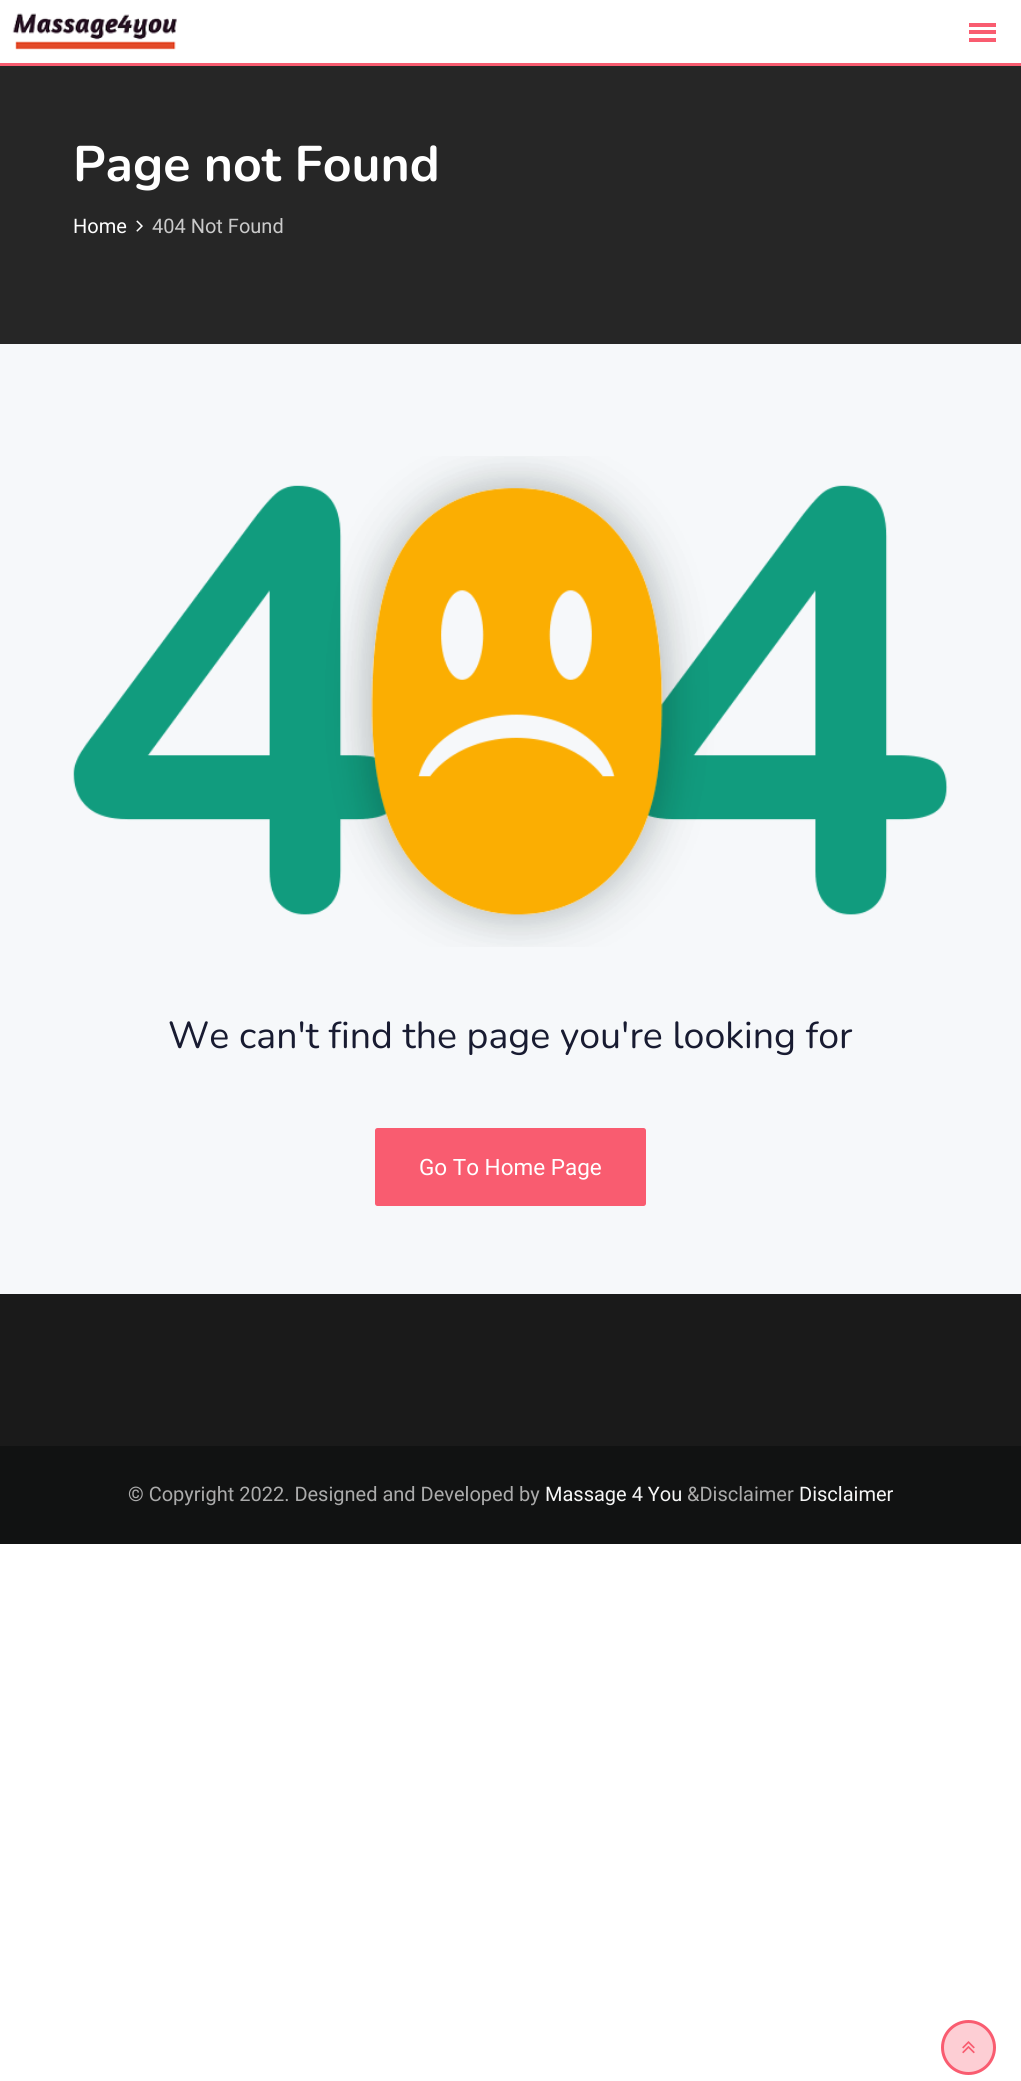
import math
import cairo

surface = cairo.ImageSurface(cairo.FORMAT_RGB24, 1021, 2081)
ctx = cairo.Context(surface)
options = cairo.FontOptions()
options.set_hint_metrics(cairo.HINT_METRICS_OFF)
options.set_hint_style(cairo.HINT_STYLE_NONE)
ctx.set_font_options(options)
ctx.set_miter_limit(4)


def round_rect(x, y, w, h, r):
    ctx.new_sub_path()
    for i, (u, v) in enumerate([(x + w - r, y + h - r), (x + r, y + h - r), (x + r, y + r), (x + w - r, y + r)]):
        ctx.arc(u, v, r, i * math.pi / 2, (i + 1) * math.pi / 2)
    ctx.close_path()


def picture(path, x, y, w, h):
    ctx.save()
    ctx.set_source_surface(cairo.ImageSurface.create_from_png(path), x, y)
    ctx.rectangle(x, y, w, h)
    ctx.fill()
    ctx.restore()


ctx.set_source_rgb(1, 1, 1)
ctx.paint()
ctx.set_source_rgb(0.973, 0.361, 0.439)
ctx.rectangle(0, 63, 1021, 3)
ctx.fill()
picture("img1.png", 12, 13, 165, 37)
ctx.rectangle(969, 23, 27, 4)
ctx.fill()
ctx.rectangle(969, 30, 27, 4)
ctx.fill()
ctx.rectangle(969, 38, 27, 4)
ctx.fill()
ctx.set_source_rgb(0.961, 0.969, 0.98)
ctx.rectangle(0, 344, 1021, 950)
ctx.fill()
ctx.set_source_rgb(0.149, 0.149, 0.149)
ctx.rectangle(0, 66, 1021, 278)
ctx.fill()
ctx.select_font_face("Nunito ExtraLight")
ctx.set_font_size(50)
ctx.set_source_rgb(1, 1, 1)
ctx.move_to(73, 181)
ctx.show_text("Page not Found")
ctx.select_font_face("Roboto")
ctx.set_font_size(20)
ctx.move_to(73, 233)
ctx.show_text("Home")
picture("img2.png", 136, 220, 7, 12)
ctx.set_source_rgb(0.792, 0.792, 0.792)
ctx.move_to(152, 233)
ctx.show_text("404 Not Found")
picture("img3.png", 73, 456, 875, 491)
ctx.select_font_face("Nunito")
ctx.set_font_size(37.5)
ctx.set_source_rgb(0.094, 0.106, 0.192)
ctx.move_to(168, 1048)
ctx.show_text("We can't find the page you're looking for")
ctx.set_source_rgb(0.973, 0.361, 0.439)
round_rect(375, 1128, 271, 78, 2.5)
ctx.fill()
ctx.select_font_face("Roboto")
ctx.set_font_size(22.5)
ctx.set_source_rgb(1, 1, 1)
ctx.move_to(419, 1175)
ctx.show_text("Go To Home Page")
ctx.set_source_rgb(0.102, 0.102, 0.102)
ctx.rectangle(0, 1294, 1021, 152)
ctx.fill()
ctx.set_source_rgb(0.067, 0.071, 0.071)
ctx.rectangle(0, 1446, 1021, 98)
ctx.fill()
ctx.set_font_size(20)
ctx.set_source_rgb(0.671, 0.671, 0.671)
ctx.move_to(128, 1501)
ctx.show_text("© Copyright 2022. Designed and Developed by")
ctx.set_source_rgb(0.961, 0.961, 0.961)
ctx.move_to(545, 1501)
ctx.show_text("Massage 4 You")
ctx.set_source_rgb(0.671, 0.671, 0.671)
ctx.move_to(687, 1501)
ctx.show_text("&Disclaimer")
ctx.set_source_rgb(0.961, 0.961, 0.961)
ctx.move_to(799, 1501)
ctx.show_text("Disclaimer")
ctx.set_source_rgb(0.992, 0.808, 0.831)
ctx.new_path()
ctx.arc(968.5, 2047.5, 26, 0, 2 * math.pi)
ctx.fill_preserve()
ctx.set_source_rgb(0.973, 0.361, 0.439)
ctx.set_line_width(3)
ctx.stroke()
picture("img4.png", 962, 2041, 13, 13)
surface.write_to_png("page.png")
